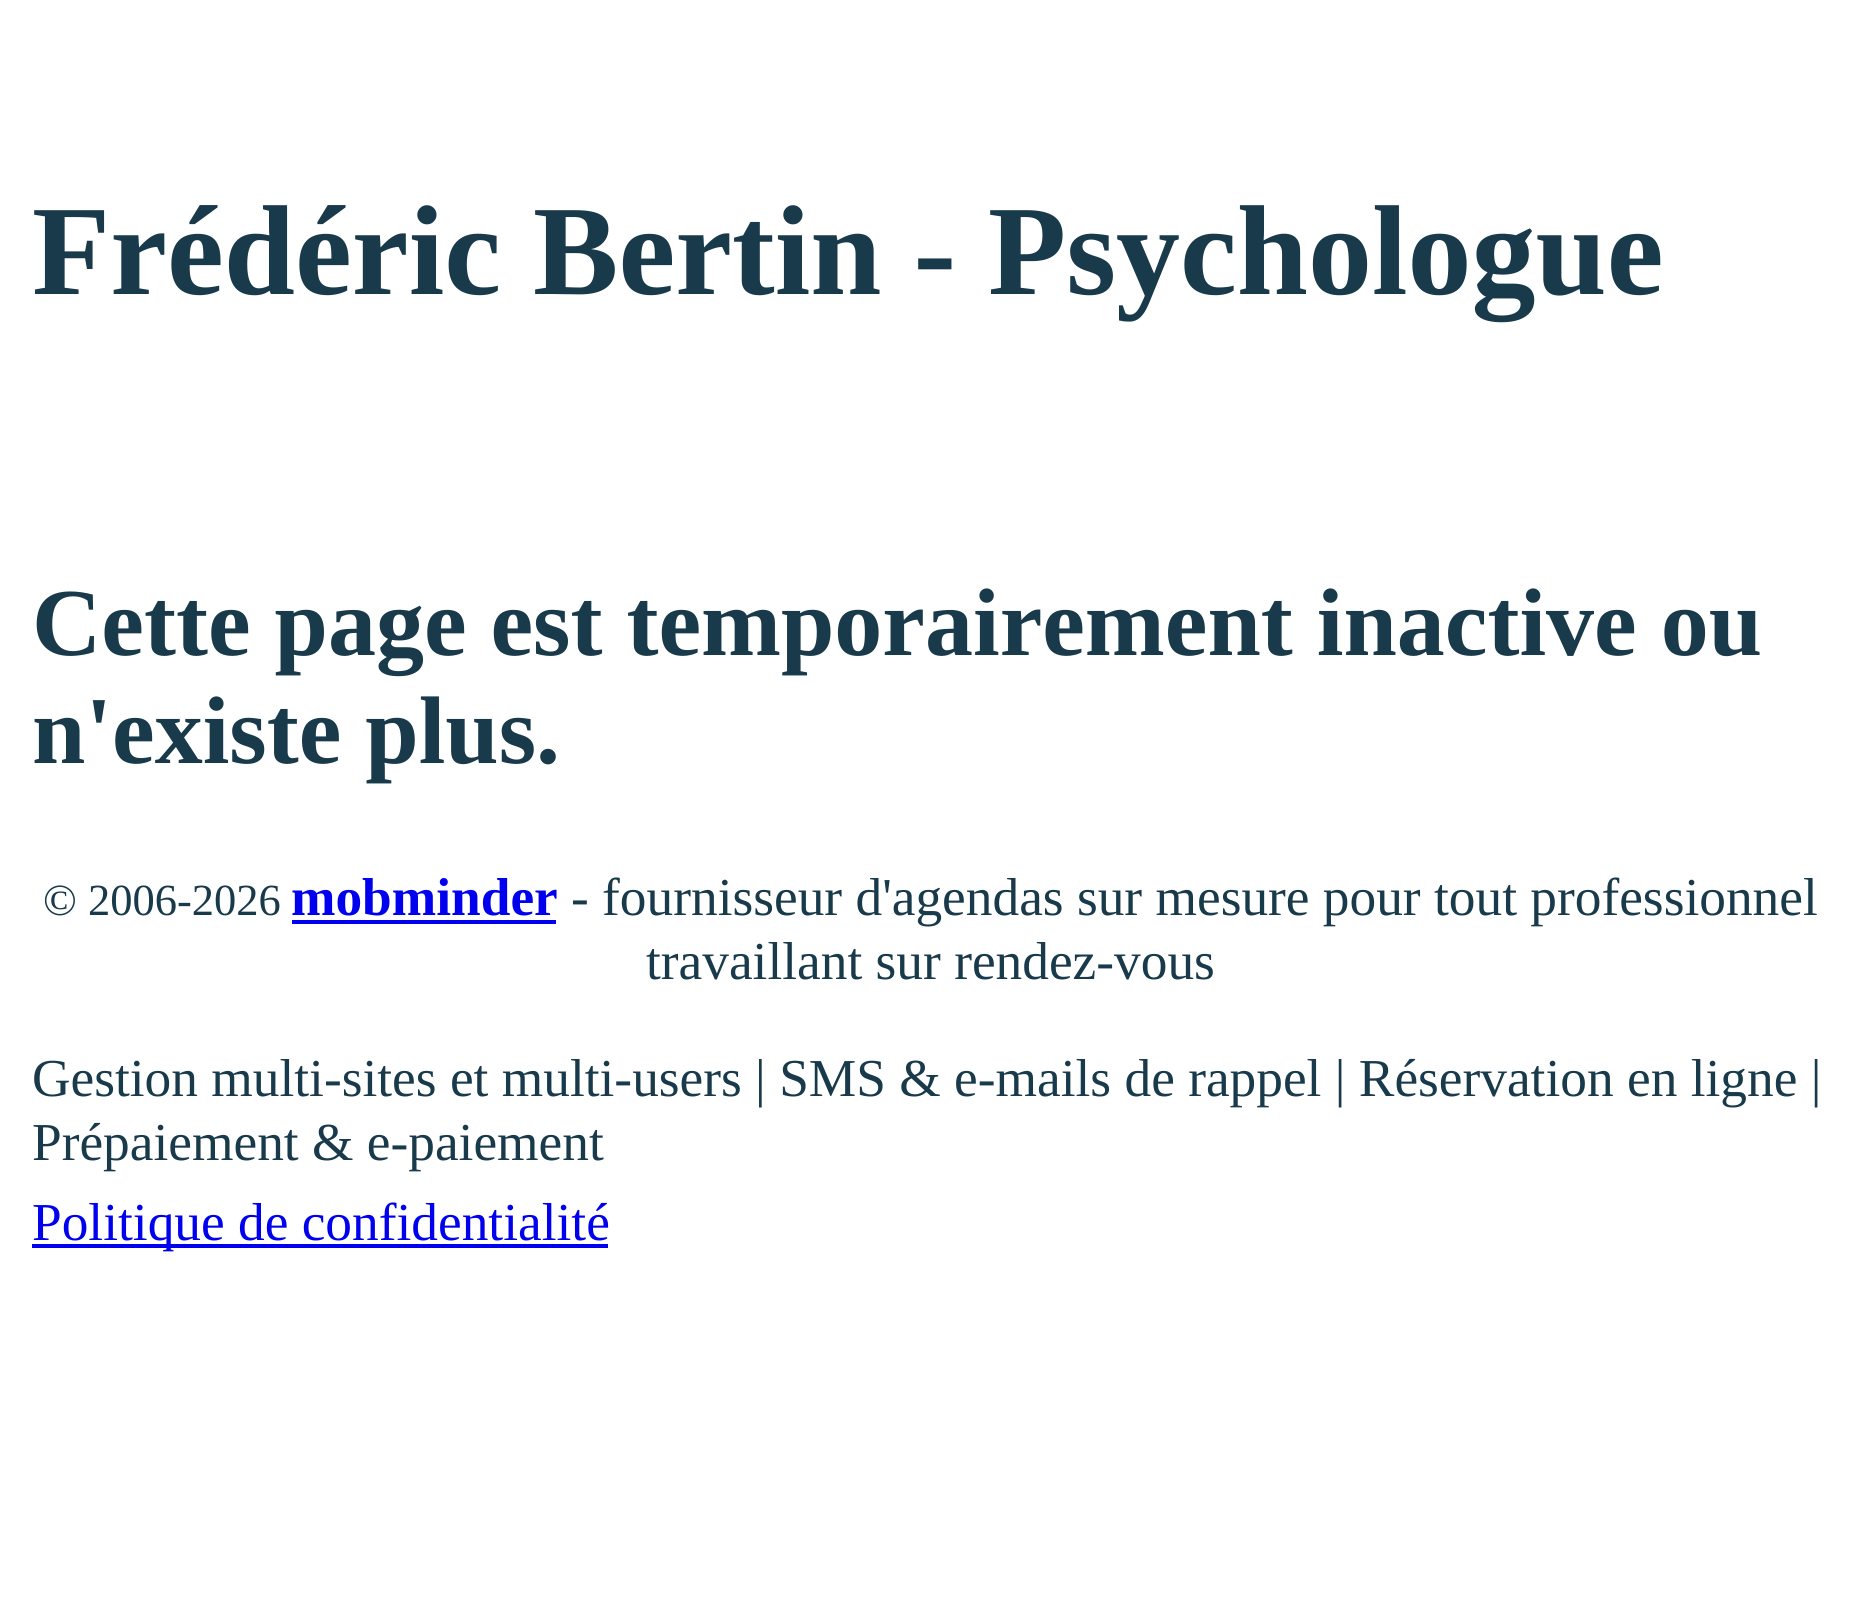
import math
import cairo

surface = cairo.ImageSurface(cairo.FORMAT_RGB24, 1858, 1601)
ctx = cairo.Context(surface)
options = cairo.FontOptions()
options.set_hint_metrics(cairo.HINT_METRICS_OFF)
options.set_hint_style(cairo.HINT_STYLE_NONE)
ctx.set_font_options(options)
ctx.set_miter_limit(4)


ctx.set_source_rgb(1, 1, 1)
ctx.paint()
ctx.select_font_face("Liberation Serif", cairo.FONT_SLANT_NORMAL, cairo.FONT_WEIGHT_BOLD)
ctx.set_font_size(128)
ctx.set_source_rgb(0.094, 0.227, 0.29)
ctx.move_to(32, 294)
ctx.show_text("Frédéric Bertin - Psychologue")
ctx.set_font_size(96)
ctx.move_to(32, 655)
ctx.show_text("Cette page est temporairement inactive ou")
ctx.move_to(32, 763)
ctx.show_text("n'existe plus.")
ctx.select_font_face("Liberation Serif")
ctx.set_font_size(44.5)
ctx.move_to(43, 915)
ctx.show_text("© 2006-2026")
ctx.select_font_face("Liberation Serif", cairo.FONT_SLANT_NORMAL, cairo.FONT_WEIGHT_BOLD)
ctx.set_font_size(53.35)
ctx.set_source_rgb(0, 0, 0.933)
ctx.move_to(291, 915)
ctx.show_text("mobminder")
ctx.rectangle(292, 920, 264, 4)
ctx.fill()
ctx.select_font_face("Liberation Serif")
ctx.set_source_rgb(0.094, 0.227, 0.29)
ctx.move_to(571, 915)
ctx.show_text("- fournisseur d'agendas sur mesure pour tout professionnel")
ctx.move_to(646, 979)
ctx.show_text("travaillant sur rendez-vous")
ctx.move_to(32, 1096)
ctx.show_text("Gestion multi-sites et multi-users | SMS & e-mails de rappel | Réservation en ligne |")
ctx.move_to(32, 1160)
ctx.show_text("Prépaiement & e-paiement")
ctx.set_source_rgb(0, 0, 0.933)
ctx.rectangle(32, 1244, 576, 4)
ctx.fill()
ctx.move_to(32, 1240)
ctx.show_text("Politique de confidentialité")
surface.write_to_png("page.png")
